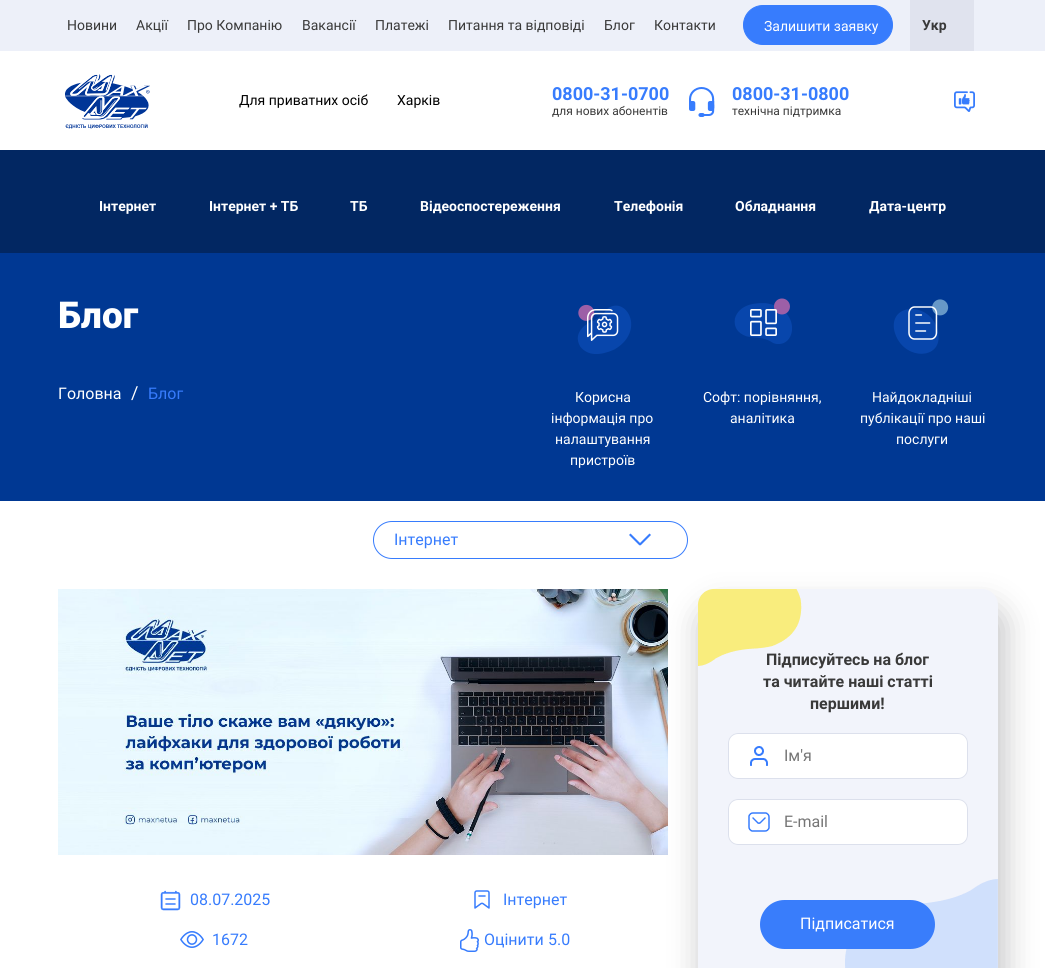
import math
import cairo

surface = cairo.ImageSurface(cairo.FORMAT_RGB24, 1045, 968)
ctx = cairo.Context(surface)
options = cairo.FontOptions()
options.set_hint_metrics(cairo.HINT_METRICS_OFF)
options.set_hint_style(cairo.HINT_STYLE_NONE)
ctx.set_font_options(options)
ctx.set_miter_limit(4)


def round_rect(x, y, w, h, r):
    ctx.new_sub_path()
    for i, (u, v) in enumerate([(x + w - r, y + h - r), (x + r, y + h - r), (x + r, y + r), (x + w - r, y + r)]):
        ctx.arc(u, v, r, i * math.pi / 2, (i + 1) * math.pi / 2)
    ctx.close_path()


def shadow(x, y, w, h, r, blur, alpha):
    ctx.push_group_with_content(cairo.CONTENT_ALPHA)
    ctx.set_operator(cairo.OPERATOR_SOURCE)
    for i in range(15, -16, -2):
        e = blur * i / 6
        if min(w, h) + 2 * e > 0:
            ctx.set_source_rgba(0, 0, 0, alpha * math.erfc((i - 1) / 8.5) / 2)
            round_rect(x - e, y - e, w + 2 * e, h + 2 * e, max(0, min(r + e + blur * .6, min(w, h) / 2 + e)))
            ctx.fill()
    ctx.mask(ctx.pop_group())


def picture(path, x, y, w, h):
    ctx.save()
    ctx.set_source_surface(cairo.ImageSurface.create_from_png(path), x, y)
    ctx.rectangle(x, y, w, h)
    ctx.fill()
    ctx.restore()


ctx.set_source_rgb(1, 1, 1)
ctx.paint()
ctx.set_source_rgb(0.929, 0.941, 0.973)
ctx.rectangle(0, 0, 1045, 51)
ctx.fill()
ctx.select_font_face("Roboto")
ctx.set_font_size(14)
ctx.set_source_rgb(0.224, 0.224, 0.224)
ctx.move_to(67, 30)
ctx.show_text("Новини")
ctx.move_to(136, 30)
ctx.show_text("Акції")
ctx.move_to(187, 30)
ctx.show_text("Про Компанію")
ctx.move_to(302, 30)
ctx.show_text("Вакансії")
ctx.move_to(375, 30)
ctx.show_text("Платежі")
ctx.move_to(448, 30)
ctx.show_text("Питання та відповіді")
ctx.move_to(604, 30)
ctx.show_text("Блог")
ctx.move_to(654, 30)
ctx.show_text("Контакти")
ctx.set_source_rgb(0.216, 0.486, 0.992)
round_rect(743.5, 5.5, 149, 39, 19.5)
ctx.fill_preserve()
ctx.set_line_width(1)
ctx.stroke()
ctx.set_source_rgb(1, 1, 1)
ctx.move_to(764, 31)
ctx.show_text("Залишити заявку")
ctx.set_source_rgb(0.878, 0.89, 0.933)
ctx.rectangle(910, 0, 64, 51)
ctx.fill()
ctx.select_font_face("Roboto", cairo.FONT_SLANT_NORMAL, cairo.FONT_WEIGHT_BOLD)
ctx.set_source_rgb(0.224, 0.224, 0.224)
ctx.move_to(922, 30)
ctx.show_text("Укр")
picture("img1.png", 65, 74, 85, 55)
ctx.select_font_face("Roboto")
ctx.set_source_rgb(0, 0, 0)
ctx.move_to(239, 105)
ctx.show_text("Для приватних осіб")
ctx.move_to(397, 105)
ctx.show_text("Харків")
ctx.select_font_face("Roboto", cairo.FONT_SLANT_NORMAL, cairo.FONT_WEIGHT_BOLD)
ctx.set_font_size(18)
ctx.set_source_rgb(0.216, 0.486, 0.992)
ctx.move_to(552, 100)
ctx.show_text("0800-31-0700")
ctx.select_font_face("Roboto")
ctx.set_font_size(12)
ctx.set_source_rgb(0.224, 0.224, 0.224)
ctx.move_to(552, 115)
ctx.show_text("для нових абонентів")
picture("img2.png", 689, 87, 26, 30)
ctx.select_font_face("Roboto", cairo.FONT_SLANT_NORMAL, cairo.FONT_WEIGHT_BOLD)
ctx.set_font_size(18)
ctx.set_source_rgb(0.216, 0.486, 0.992)
ctx.move_to(732, 100)
ctx.show_text("0800-31-0800")
ctx.select_font_face("Roboto")
ctx.set_font_size(12)
ctx.set_source_rgb(0.224, 0.224, 0.224)
ctx.move_to(732, 115)
ctx.show_text("технічна підтримка")
picture("img3.png", 954, 91, 21, 21)
ctx.set_source_rgb(0.008, 0.153, 0.384)
ctx.rectangle(0, 150, 1045, 103)
ctx.fill()
ctx.select_font_face("Roboto", cairo.FONT_SLANT_NORMAL, cairo.FONT_WEIGHT_BOLD)
ctx.set_font_size(14)
ctx.set_source_rgb(1, 1, 1)
ctx.move_to(99, 211)
ctx.show_text("Iнтернет")
ctx.move_to(209, 211)
ctx.show_text("Iнтернет + ТБ")
ctx.move_to(350, 211)
ctx.show_text("ТБ")
ctx.move_to(420, 211)
ctx.show_text("Відеоспостереження")
ctx.move_to(614, 211)
ctx.show_text("Телефонія")
ctx.move_to(735, 211)
ctx.show_text("Обладнання")
ctx.move_to(869, 211)
ctx.show_text("Дата-центр")
ctx.set_source_rgb(0, 0.22, 0.576)
ctx.rectangle(0, 253, 1045, 248)
ctx.fill()
ctx.select_font_face("Roboto Black")
ctx.set_font_size(37)
ctx.set_source_rgb(1, 1, 1)
ctx.move_to(58, 328)
ctx.show_text("Блог")
ctx.select_font_face("Roboto")
ctx.set_font_size(16)
ctx.move_to(58, 399)
ctx.show_text("Головна")
ctx.set_font_size(18)
ctx.move_to(131, 399)
ctx.show_text("/")
ctx.set_font_size(16)
ctx.set_source_rgb(0.216, 0.486, 0.992)
ctx.move_to(148, 399)
ctx.show_text("Блог")
picture("img4.png", 577, 304, 55, 50)
ctx.set_font_size(14)
ctx.set_source_rgb(1, 1, 1)
ctx.move_to(575, 402)
ctx.show_text("Корисна")
ctx.move_to(551, 423)
ctx.show_text("інформація про")
ctx.move_to(555, 444)
ctx.show_text("налаштування")
ctx.move_to(570, 465)
ctx.show_text("пристроїв")
picture("img5.png", 734, 298, 58, 46)
ctx.move_to(703, 402)
ctx.show_text("Софт: порівняння,")
ctx.move_to(730, 423)
ctx.show_text("аналітика")
picture("img6.png", 893, 299, 56, 55)
ctx.move_to(872, 402)
ctx.show_text("Найдокладніші")
ctx.move_to(860, 423)
ctx.show_text("публікації про наші")
ctx.move_to(896, 444)
ctx.show_text("послуги")
round_rect(373.5, 521.5, 314, 37, 18.5)
ctx.set_source_rgb(0.216, 0.486, 0.992)
ctx.stroke()
ctx.set_font_size(16)
ctx.move_to(394, 545)
ctx.show_text("Iнтернет")
ctx.new_path()
ctx.move_to(639, 544)
ctx.line_to(649.5, 533.5)
ctx.line_to(651, 535)
ctx.line_to(640.5, 545.5)
ctx.close_path()
ctx.fill()
ctx.new_path()
ctx.move_to(630.5, 533.5)
ctx.line_to(641, 544)
ctx.line_to(639.5, 545.5)
ctx.line_to(629, 535)
ctx.close_path()
ctx.fill()
picture("img7.png", 58, 589, 610, 266)
picture("img8.png", 160, 890, 21, 21)
ctx.move_to(190, 905)
ctx.show_text("08.07.2025")
picture("img9.png", 474, 890, 16, 19)
ctx.move_to(503, 905)
ctx.show_text("Iнтернет")
picture("img10.png", 180, 931, 24, 17)
ctx.move_to(212, 945)
ctx.show_text("1672")
picture("img11.png", 460, 929, 19, 23)
ctx.move_to(484, 945)
ctx.show_text("Оцінити")
ctx.move_to(548, 945)
ctx.show_text("5.0")
ctx.set_source_rgb(0.012, 0.012, 0.031)
shadow(698, 604, 310, 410, 21, 15, 0.2)
ctx.set_source_rgb(0.949, 0.957, 0.984)
round_rect(698, 589, 300, 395, 16)
ctx.fill()
picture("img12.png", 698, 589, 104, 77)
ctx.select_font_face("Roboto", cairo.FONT_SLANT_NORMAL, cairo.FONT_WEIGHT_BOLD)
ctx.set_source_rgb(0.224, 0.224, 0.224)
ctx.move_to(766, 665)
ctx.show_text("Підписуйтесь на блог")
ctx.move_to(763, 687)
ctx.show_text("та читайте наші статті")
ctx.move_to(810, 709)
ctx.show_text("першими!")
ctx.set_source_rgb(1, 1, 1)
round_rect(728, 733, 240, 46, 10)
ctx.fill()
picture("img13.png", 750, 746, 18, 20)
round_rect(728.5, 733.5, 239, 45, 9.5)
ctx.set_source_rgb(0.863, 0.878, 0.925)
ctx.stroke()
ctx.select_font_face("Roboto")
ctx.set_source_rgb(0.459, 0.459, 0.459)
ctx.move_to(784, 761)
ctx.show_text("Ім'я")
ctx.set_source_rgb(1, 1, 1)
round_rect(728, 799, 240, 46, 10)
ctx.fill()
picture("img14.png", 748, 812, 22, 20)
round_rect(728.5, 799.5, 239, 45, 9.5)
ctx.set_source_rgb(0.863, 0.878, 0.925)
ctx.stroke()
ctx.set_source_rgb(0.459, 0.459, 0.459)
ctx.move_to(784, 827)
ctx.show_text("E-mail")
picture("img15.png", 845, 879, 153, 89)
ctx.set_source_rgb(0.224, 0.49, 0.984)
round_rect(760, 900, 175, 49, 24.5)
ctx.fill()
ctx.set_source_rgb(1, 1, 1)
ctx.move_to(800, 929)
ctx.show_text("Підписатися")
surface.write_to_png("page.png")
